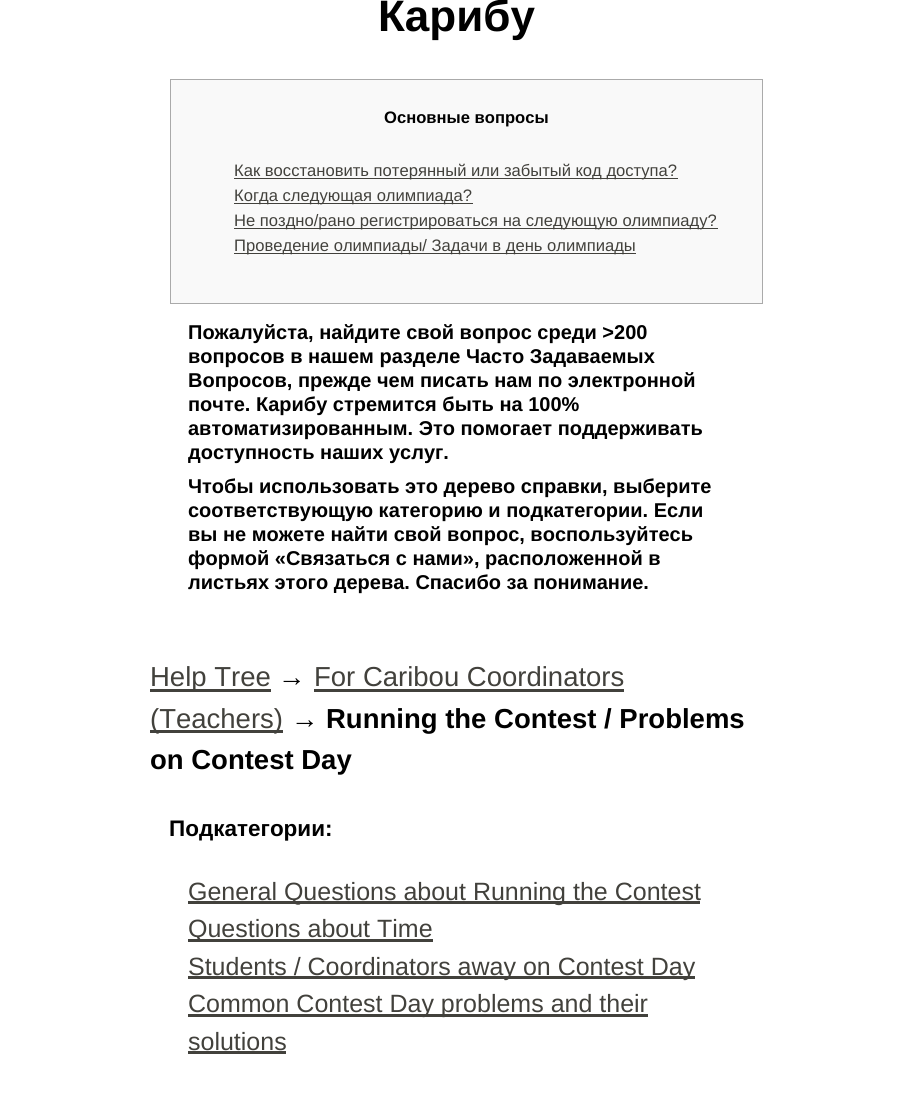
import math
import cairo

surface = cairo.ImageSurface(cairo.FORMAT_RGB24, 912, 1101)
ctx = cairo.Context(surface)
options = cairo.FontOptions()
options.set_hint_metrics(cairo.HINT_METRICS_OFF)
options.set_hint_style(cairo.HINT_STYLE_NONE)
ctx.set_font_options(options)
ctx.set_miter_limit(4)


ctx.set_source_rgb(1, 1, 1)
ctx.paint()
ctx.select_font_face("Liberation Sans", cairo.FONT_SLANT_NORMAL, cairo.FONT_WEIGHT_BOLD)
ctx.set_font_size(44)
ctx.set_source_rgb(0, 0, 0)
ctx.move_to(378, 31)
ctx.show_text("Карибу")
ctx.set_source_rgb(0.976, 0.976, 0.976)
ctx.rectangle(170.5, 79.5, 592, 224)
ctx.fill_preserve()
ctx.set_source_rgb(0.667, 0.667, 0.667)
ctx.set_line_width(1)
ctx.stroke()
ctx.set_font_size(16.6)
ctx.set_source_rgb(0, 0, 0)
ctx.move_to(384, 123)
ctx.show_text("Основные вопросы")
ctx.set_source_rgb(0.259, 0.255, 0.235)
ctx.rectangle(234, 178, 444, 1)
ctx.fill()
ctx.select_font_face("Liberation Sans")
ctx.move_to(234, 176)
ctx.show_text("Как восстановить потерянный или забытый код доступа?")
ctx.rectangle(234, 203, 239, 1)
ctx.fill()
ctx.move_to(234, 201)
ctx.show_text("Когда следующая олимпиада?")
ctx.rectangle(234, 228, 484, 1)
ctx.fill()
ctx.move_to(234, 226)
ctx.show_text("Не поздно/рано регистрироваться на следующую олимпиаду?")
ctx.rectangle(234, 253, 402, 1)
ctx.fill()
ctx.move_to(234, 251)
ctx.show_text("Проведение олимпиады/ Задачи в день олимпиады")
ctx.select_font_face("Liberation Sans", cairo.FONT_SLANT_NORMAL, cairo.FONT_WEIGHT_BOLD)
ctx.set_font_size(20)
ctx.set_source_rgb(0, 0, 0)
ctx.move_to(188, 339)
ctx.show_text("Пожалуйста, найдите свой вопрос среди >200")
ctx.move_to(188, 363)
ctx.show_text("вопросов в нашем разделе Часто Задаваемых")
ctx.move_to(188, 387)
ctx.show_text("Вопросов, прежде чем писать нам по электронной")
ctx.move_to(188, 411)
ctx.show_text("почте. Карибу стремится быть на 100%")
ctx.move_to(188, 435)
ctx.show_text("автоматизированным. Это помогает поддерживать")
ctx.move_to(188, 459)
ctx.show_text("доступность наших услуг.")
ctx.move_to(188, 493)
ctx.show_text("Чтобы использовать это дерево справки, выберите")
ctx.move_to(188, 517)
ctx.show_text("соответствующую категорию и подкатегории. Если")
ctx.move_to(188, 541)
ctx.show_text("вы не можете найти свой вопрос, воспользуйтесь")
ctx.move_to(188, 565)
ctx.show_text("формой «Связаться с нами», расположенной в")
ctx.move_to(188, 589)
ctx.show_text("листьях этого дерева. Спасибо за понимание.")
ctx.set_source_rgb(0.259, 0.255, 0.235)
ctx.rectangle(150, 689, 121, 3)
ctx.fill()
ctx.select_font_face("Liberation Sans")
ctx.set_font_size(27.5)
ctx.move_to(150, 686)
ctx.show_text("Help Tree")
ctx.set_source_rgb(0, 0, 0)
ctx.move_to(278, 686)
ctx.show_text("→")
ctx.set_source_rgb(0.259, 0.255, 0.235)
ctx.move_to(314, 686)
ctx.show_text("For Caribou Coordinators")
ctx.rectangle(314, 689, 310, 3)
ctx.fill()
ctx.rectangle(150, 730, 133, 3)
ctx.fill()
ctx.move_to(150, 728)
ctx.show_text("(Teachers)")
ctx.set_source_rgb(0, 0, 0)
ctx.move_to(291, 728)
ctx.show_text("→")
ctx.select_font_face("Liberation Sans", cairo.FONT_SLANT_NORMAL, cairo.FONT_WEIGHT_BOLD)
ctx.move_to(326, 728)
ctx.show_text("Running the Contest / Problems")
ctx.move_to(150, 769)
ctx.show_text("on Contest Day")
ctx.set_font_size(22.5)
ctx.move_to(169, 836)
ctx.show_text("Подкатегории:")
ctx.set_source_rgb(0.259, 0.255, 0.235)
ctx.rectangle(188, 901, 512, 3)
ctx.fill()
ctx.select_font_face("Liberation Sans")
ctx.set_font_size(25)
ctx.move_to(188, 900)
ctx.show_text("General Questions about Running the Contest")
ctx.rectangle(188, 939, 245, 3)
ctx.fill()
ctx.move_to(188, 937)
ctx.show_text("Questions about Time")
ctx.rectangle(188, 976, 507, 3)
ctx.fill()
ctx.move_to(188, 975)
ctx.show_text("Students / Coordinators away on Contest Day")
ctx.rectangle(188, 1014, 460, 3)
ctx.fill()
ctx.move_to(188, 1012)
ctx.show_text("Common Contest Day problems and their")
ctx.move_to(188, 1050)
ctx.show_text("solutions")
ctx.rectangle(188, 1051, 98, 3)
ctx.fill()
surface.write_to_png("page.png")
